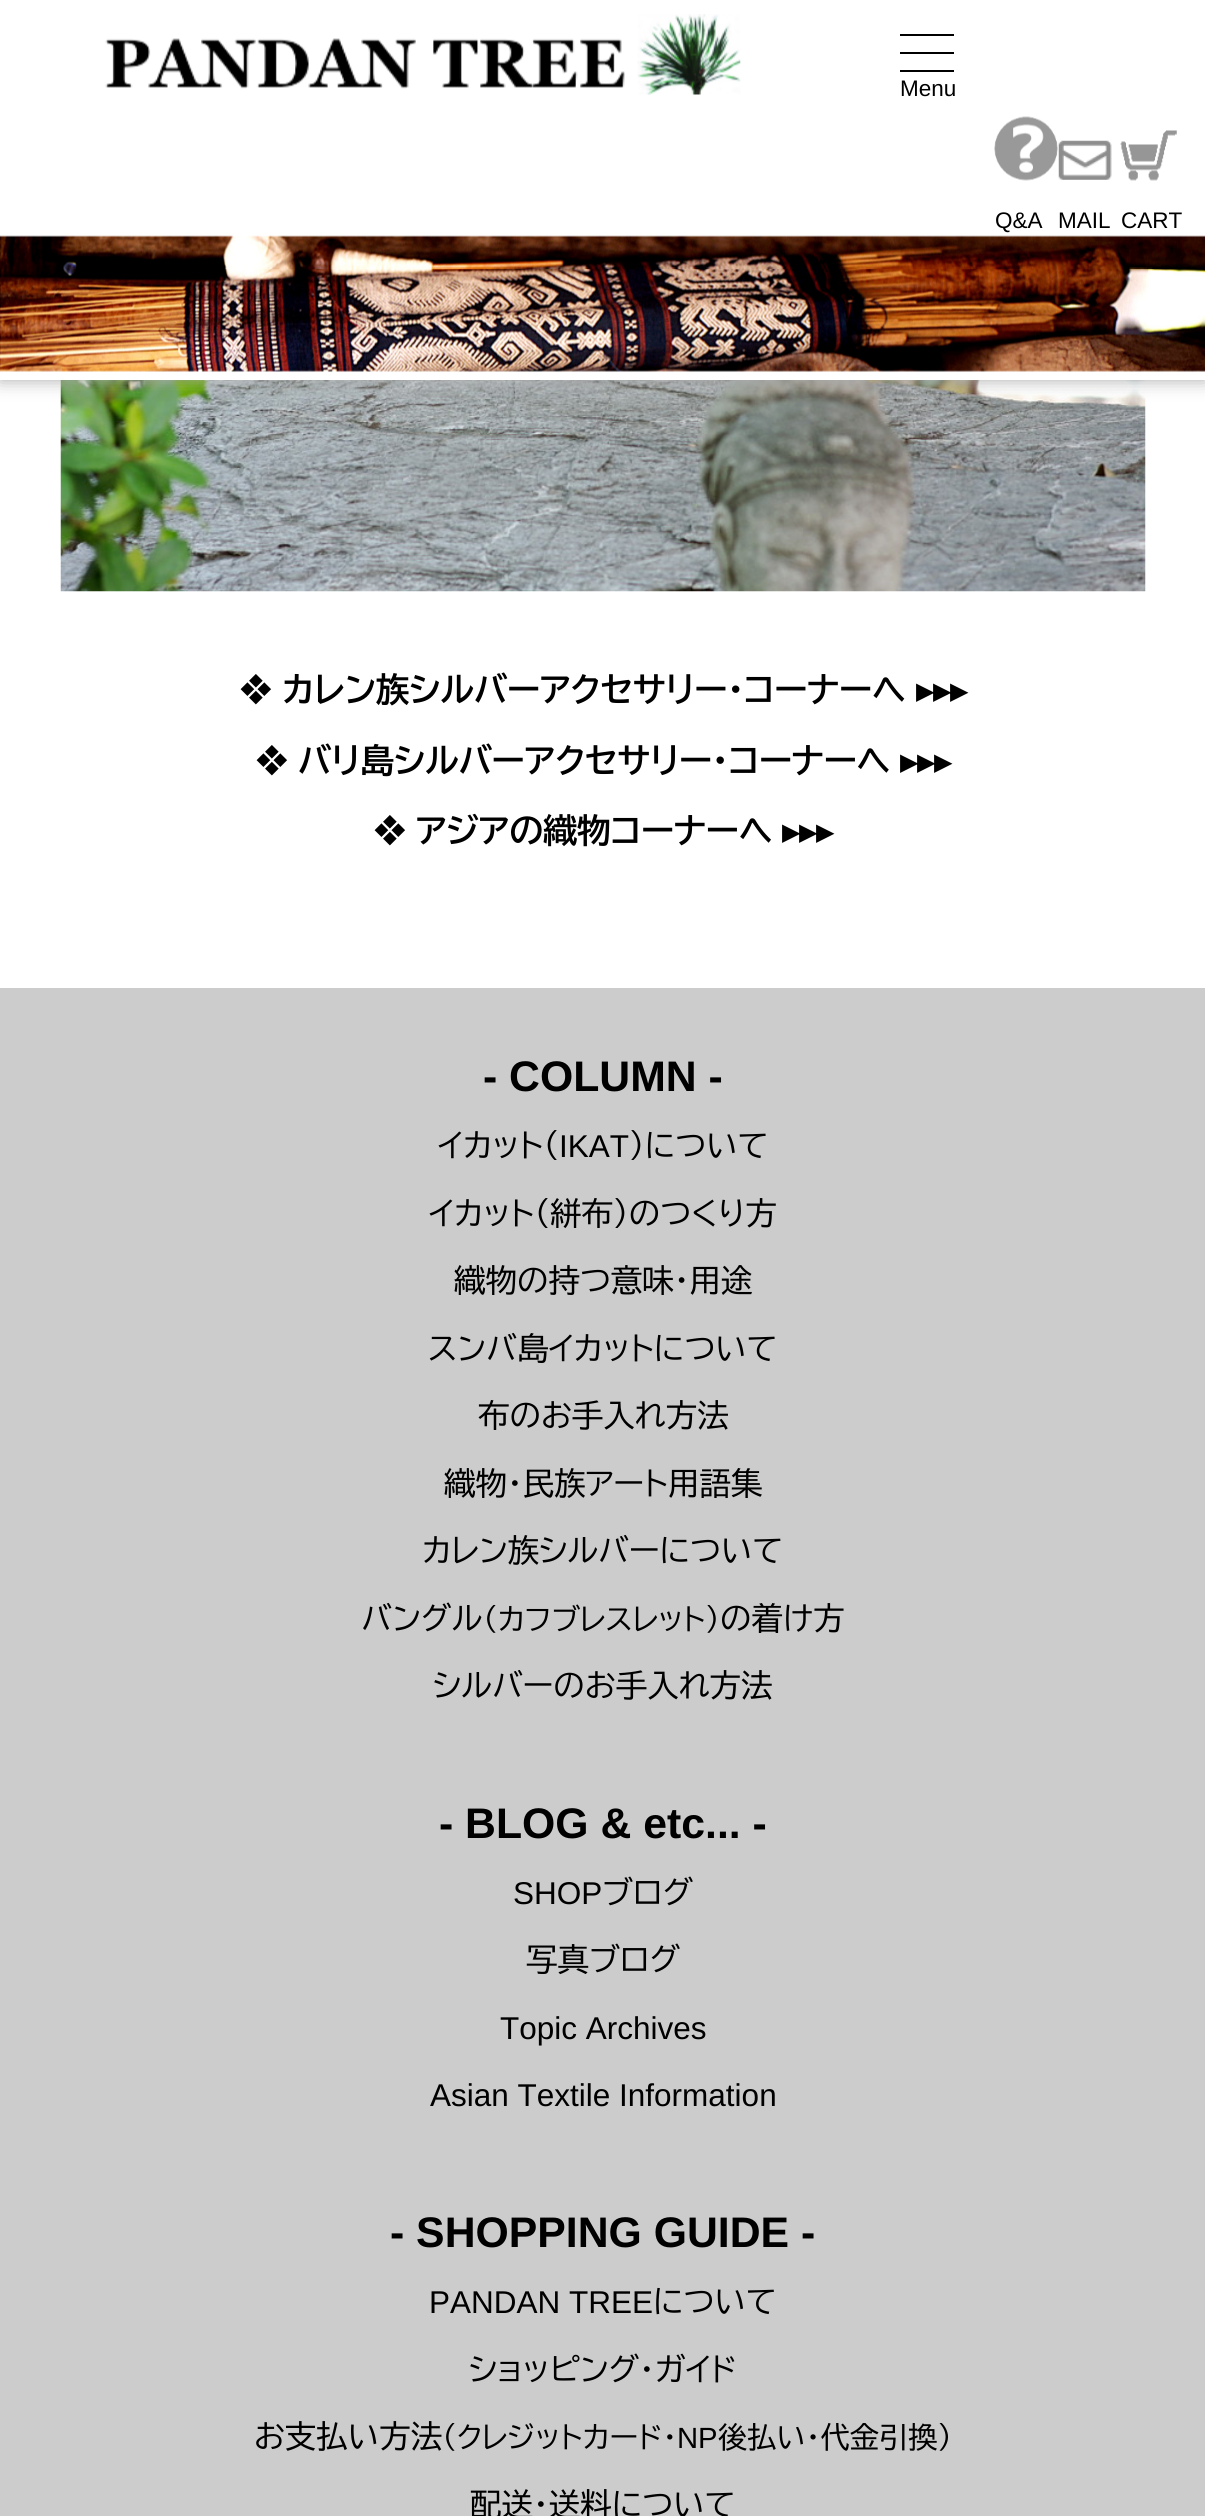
import math
import cairo

surface = cairo.ImageSurface(cairo.FORMAT_RGB24, 1205, 2516)
ctx = cairo.Context(surface)
options = cairo.FontOptions()
options.set_hint_metrics(cairo.HINT_METRICS_OFF)
options.set_hint_style(cairo.HINT_STYLE_NONE)
ctx.set_font_options(options)
ctx.set_miter_limit(4)


def spaced_text(x, y, s, letter, word):
    ctx.move_to(x, y)
    for ch in s:
        ctx.show_text(ch)
        ctx.rel_move_to(letter + word * (ch == ' '), 0)


def round_rect(x, y, w, h, r):
    ctx.new_sub_path()
    for i, (u, v) in enumerate([(x + w - r, y + h - r), (x + r, y + h - r), (x + r, y + r), (x + w - r, y + r)]):
        ctx.arc(u, v, r, i * math.pi / 2, (i + 1) * math.pi / 2)
    ctx.close_path()


def shadow(x, y, w, h, r, blur, alpha):
    ctx.push_group_with_content(cairo.CONTENT_ALPHA)
    ctx.set_operator(cairo.OPERATOR_SOURCE)
    for i in range(15, -16, -2):
        e = blur * i / 6
        if min(w, h) + 2 * e > 0:
            ctx.set_source_rgba(0, 0, 0, alpha * math.erfc((i - 1) / 8.5) / 2)
            round_rect(x - e, y - e, w + 2 * e, h + 2 * e, max(0, min(r + e + blur * .6, min(w, h) / 2 + e)))
            ctx.fill()
    ctx.mask(ctx.pop_group())


def picture(path, x, y, w, h):
    ctx.save()
    ctx.set_source_surface(cairo.ImageSurface.create_from_png(path), x, y)
    ctx.rectangle(x, y, w, h)
    ctx.fill()
    ctx.restore()


ctx.set_source_rgb(1, 1, 1)
ctx.paint()
picture("img6.png", 60, 380, 1086, 212)
ctx.set_source_rgb(0.667, 0.667, 0.667)
shadow(0, 0, 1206, 380, 0, 9, 1)
ctx.set_source_rgb(1, 1, 1)
ctx.rectangle(0, 0, 1205, 380)
ctx.fill()
picture("img1.png", 105, 14, 636, 81)
ctx.set_source_rgb(0, 0, 0)
ctx.rectangle(900, 34, 54, 2)
ctx.fill()
ctx.rectangle(900, 70, 54, 2)
ctx.fill()
ctx.rectangle(900, 52, 54, 2)
ctx.fill()
ctx.select_font_face("Liberation Sans")
ctx.set_font_size(22.5)
ctx.move_to(900, 96)
ctx.show_text("Menu")
picture("img2.png", 994, 116, 64, 65)
ctx.move_to(995, 228)
ctx.show_text("Q&A")
picture("img3.png", 1058, 140, 54, 40)
ctx.move_to(1058, 228)
ctx.show_text("MAIL")
picture("img4.png", 1120, 130, 57, 51)
ctx.move_to(1121, 228)
ctx.show_text("CART")
picture("img5.png", 0, 235, 1205, 137)
ctx.select_font_face("BIZ UDPGothic", cairo.FONT_SLANT_NORMAL, cairo.FONT_WEIGHT_BOLD)
ctx.set_font_size(33.75)
spaced_text(239, 702, "❖ カレン族シルバーアクセサリー・コーナーへ", 0, -2)
ctx.select_font_face("DejaVu Sans", cairo.FONT_SLANT_NORMAL, cairo.FONT_WEIGHT_BOLD)
ctx.move_to(916, 702)
ctx.show_text("▸▸▸")
ctx.select_font_face("BIZ UDPGothic", cairo.FONT_SLANT_NORMAL, cairo.FONT_WEIGHT_BOLD)
spaced_text(255, 773, "❖ バリ島シルバーアクセサリー・コーナーへ", 0, -2)
ctx.select_font_face("DejaVu Sans", cairo.FONT_SLANT_NORMAL, cairo.FONT_WEIGHT_BOLD)
ctx.move_to(900, 773)
ctx.show_text("▸▸▸")
ctx.select_font_face("BIZ UDPGothic", cairo.FONT_SLANT_NORMAL, cairo.FONT_WEIGHT_BOLD)
spaced_text(373, 843, "❖ アジアの織物コーナーへ", 0, -2)
ctx.select_font_face("DejaVu Sans", cairo.FONT_SLANT_NORMAL, cairo.FONT_WEIGHT_BOLD)
ctx.move_to(782, 843)
ctx.show_text("▸▸▸")
ctx.set_source_rgb(0.8, 0.8, 0.8)
ctx.rectangle(0, 988, 1205, 1528)
ctx.fill()
ctx.select_font_face("Liberation Sans", cairo.FONT_SLANT_NORMAL, cairo.FONT_WEIGHT_BOLD)
ctx.set_font_size(42.75)
ctx.set_source_rgb(0, 0, 0)
ctx.move_to(483, 1091)
ctx.show_text("- COLUMN -")
ctx.select_font_face("BIZ UDPGothic")
ctx.set_font_size(31.5)
ctx.move_to(438, 1157)
ctx.show_text("イカット（")
ctx.select_font_face("Liberation Sans")
ctx.move_to(559, 1157)
ctx.show_text("IKAT")
ctx.select_font_face("BIZ UDPGothic")
ctx.move_to(629, 1157)
ctx.show_text("）について")
ctx.move_to(429, 1225)
ctx.show_text("イカット（絣布）のつくり方")
ctx.move_to(454, 1292)
ctx.show_text("織物の持つ意味・用途")
ctx.move_to(428, 1360)
ctx.show_text("スンバ島イカットについて")
ctx.move_to(478, 1427)
ctx.show_text("布のお手入れ方法")
ctx.move_to(444, 1495)
ctx.show_text("織物・民族アート用語集")
ctx.move_to(422, 1562)
ctx.show_text("カレン族シルバーについて")
ctx.move_to(361, 1630)
ctx.show_text("バングル")
ctx.set_font_size(29.25)
ctx.move_to(483, 1630)
ctx.show_text("（カフブレスレット）")
ctx.set_font_size(31.5)
ctx.move_to(720, 1630)
ctx.show_text("の着け方")
ctx.move_to(433, 1697)
ctx.show_text("シルバーのお手入れ方法")
ctx.select_font_face("Liberation Sans", cairo.FONT_SLANT_NORMAL, cairo.FONT_WEIGHT_BOLD)
ctx.set_font_size(42.75)
ctx.move_to(439, 1838)
ctx.show_text("- BLOG & etc... -")
ctx.select_font_face("Liberation Sans")
ctx.set_font_size(31.5)
ctx.move_to(513, 1904)
ctx.show_text("SHOP")
ctx.select_font_face("BIZ UDPGothic")
ctx.move_to(602, 1904)
ctx.show_text("ブログ")
ctx.move_to(526, 1971)
ctx.show_text("写真ブログ")
ctx.select_font_face("Liberation Sans")
ctx.move_to(500, 2039)
ctx.show_text("Topic Archives")
ctx.move_to(430, 2106)
ctx.show_text("Asian Textile Information")
ctx.select_font_face("Liberation Sans", cairo.FONT_SLANT_NORMAL, cairo.FONT_WEIGHT_BOLD)
ctx.set_font_size(42.75)
ctx.move_to(390, 2247)
ctx.show_text("- SHOPPING GUIDE -")
ctx.select_font_face("Liberation Sans")
ctx.set_font_size(31.5)
ctx.move_to(429, 2313)
ctx.show_text("PANDAN TREE")
ctx.select_font_face("BIZ UDPGothic")
ctx.move_to(653, 2313)
ctx.show_text("について")
ctx.move_to(469, 2381)
ctx.show_text("ショッピング・ガイド")
ctx.move_to(254, 2448)
ctx.show_text("お支払い方法")
ctx.set_font_size(29.25)
ctx.move_to(442, 2448)
ctx.show_text("（クレジットカード・")
ctx.select_font_face("Liberation Sans")
ctx.move_to(677, 2448)
ctx.show_text("NP")
ctx.select_font_face("BIZ UDPGothic")
ctx.move_to(718, 2448)
ctx.show_text("後払い・代金引換）")
ctx.set_font_size(31.5)
ctx.move_to(470, 2516)
ctx.show_text("配送・送料について")
surface.write_to_png("page.png")
